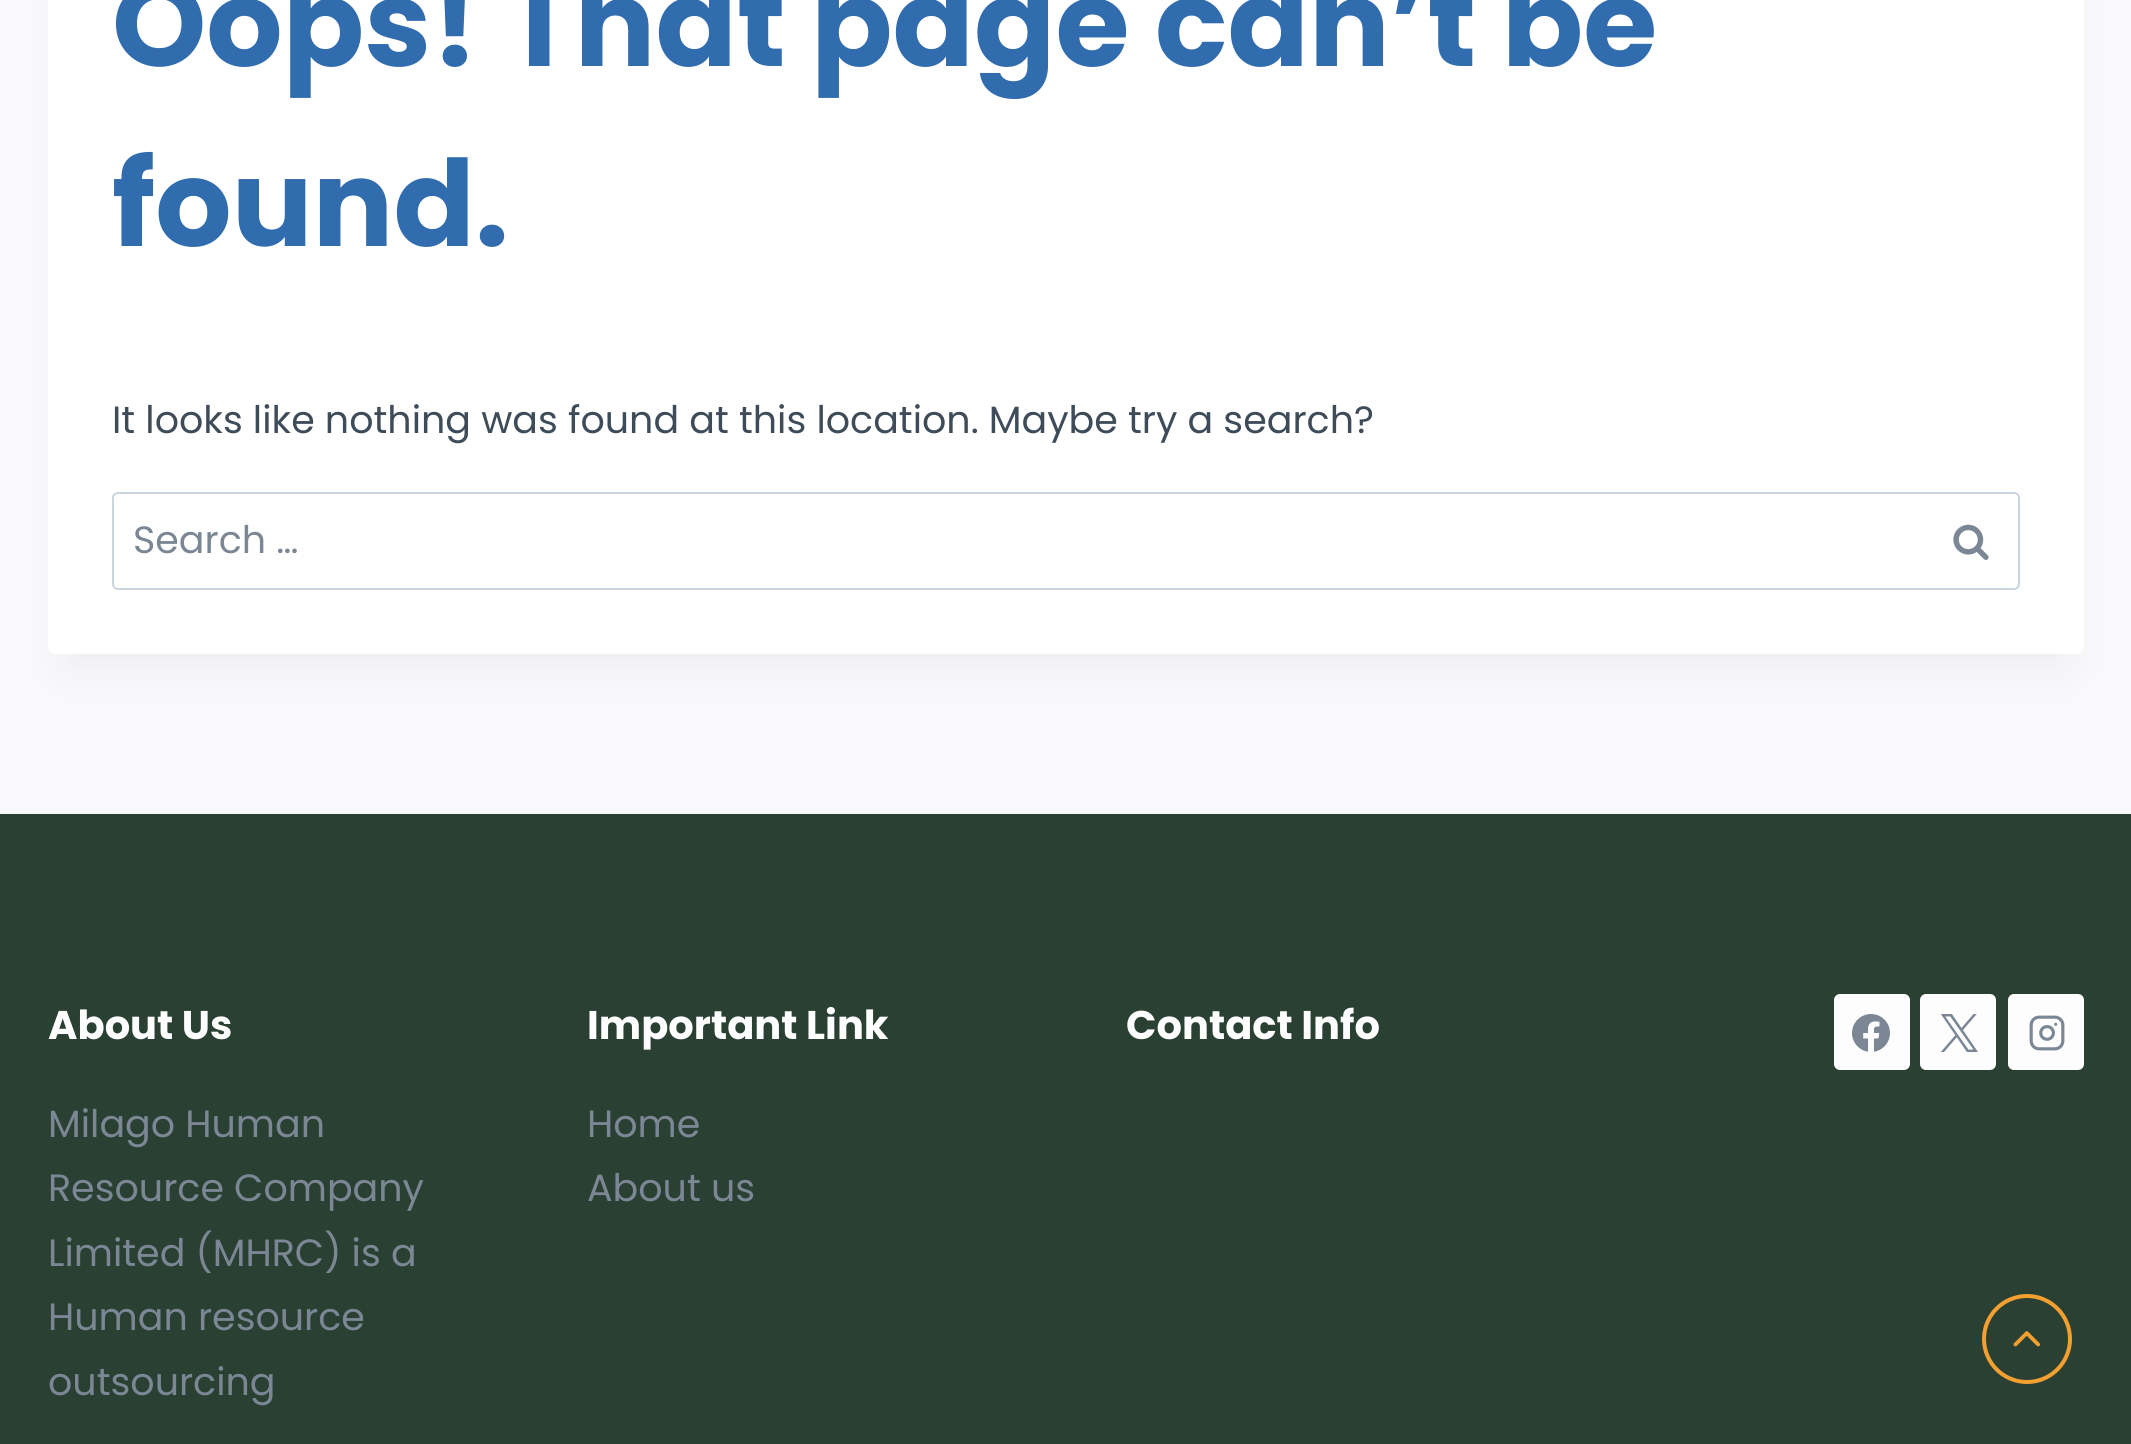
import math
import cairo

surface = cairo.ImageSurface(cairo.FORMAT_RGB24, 2131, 1444)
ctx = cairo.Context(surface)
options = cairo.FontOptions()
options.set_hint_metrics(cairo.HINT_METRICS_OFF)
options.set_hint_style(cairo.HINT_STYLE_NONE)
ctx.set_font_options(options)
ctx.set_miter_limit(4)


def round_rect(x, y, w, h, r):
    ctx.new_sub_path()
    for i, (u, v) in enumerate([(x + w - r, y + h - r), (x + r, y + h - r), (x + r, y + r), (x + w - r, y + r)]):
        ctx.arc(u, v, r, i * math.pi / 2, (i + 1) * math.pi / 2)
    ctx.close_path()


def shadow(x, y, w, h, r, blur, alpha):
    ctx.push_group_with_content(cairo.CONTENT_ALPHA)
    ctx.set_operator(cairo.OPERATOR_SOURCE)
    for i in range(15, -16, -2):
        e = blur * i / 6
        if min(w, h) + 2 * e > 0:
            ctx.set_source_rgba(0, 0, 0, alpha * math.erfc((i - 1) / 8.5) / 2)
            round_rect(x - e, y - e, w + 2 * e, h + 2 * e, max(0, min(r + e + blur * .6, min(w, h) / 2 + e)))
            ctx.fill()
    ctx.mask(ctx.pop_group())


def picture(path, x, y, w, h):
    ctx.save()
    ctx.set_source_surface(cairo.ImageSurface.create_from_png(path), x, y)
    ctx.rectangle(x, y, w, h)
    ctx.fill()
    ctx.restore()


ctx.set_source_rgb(0.976, 0.976, 0.984)
ctx.paint()
ctx.set_source_rgb(0, 0, 0)
shadow(68, -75, 1996, 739, 0, 25, 0.05)
ctx.set_source_rgb(1, 1, 1)
round_rect(48, -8, 2036, 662, 8)
ctx.fill()
ctx.select_font_face("Poppins", cairo.FONT_SLANT_NORMAL, cairo.FONT_WEIGHT_BOLD)
ctx.set_font_size(120)
ctx.set_source_rgb(0.188, 0.424, 0.682)
ctx.move_to(112, 66)
ctx.show_text("Oops! That page can’t be")
ctx.move_to(112, 246)
ctx.show_text("found.")
ctx.select_font_face("Poppins")
ctx.set_font_size(38)
ctx.set_source_rgb(0.243, 0.298, 0.349)
ctx.move_to(112, 433)
ctx.show_text("It looks like nothing was found at this location. Maybe try a search?")
round_rect(113, 493, 1906, 96, 5)
ctx.set_source_rgb(0.796, 0.835, 0.878)
ctx.stroke()
ctx.set_source_rgb(0.482, 0.529, 0.58)
ctx.move_to(133, 553)
ctx.show_text("Search …")
picture("img1.png", 1953, 524, 36, 36)
ctx.set_source_rgb(0.165, 0.251, 0.196)
ctx.rectangle(0, 814, 2131, 630)
ctx.fill()
ctx.select_font_face("Poppins", cairo.FONT_SLANT_NORMAL, cairo.FONT_WEIGHT_BOLD)
ctx.set_font_size(40)
ctx.set_source_rgb(0.992, 0.992, 0.992)
ctx.move_to(48, 1039)
ctx.show_text("About Us")
ctx.select_font_face("Poppins")
ctx.set_font_size(38)
ctx.set_source_rgb(0.482, 0.529, 0.58)
ctx.move_to(48, 1137)
ctx.show_text("Milago Human")
ctx.move_to(48, 1201)
ctx.show_text("Resource Company")
ctx.move_to(48, 1266)
ctx.show_text("Limited (MHRC) is a")
ctx.move_to(48, 1330)
ctx.show_text("Human resource")
ctx.move_to(48, 1395)
ctx.show_text("outsourcing")
ctx.select_font_face("Poppins", cairo.FONT_SLANT_NORMAL, cairo.FONT_WEIGHT_BOLD)
ctx.set_font_size(40)
ctx.set_source_rgb(0.992, 0.992, 0.992)
ctx.move_to(587, 1039)
ctx.show_text("Important Link")
ctx.select_font_face("Poppins")
ctx.set_font_size(38)
ctx.set_source_rgb(0.482, 0.529, 0.58)
ctx.move_to(587, 1137)
ctx.show_text("Home")
ctx.move_to(587, 1201)
ctx.show_text("About us")
ctx.select_font_face("Poppins", cairo.FONT_SLANT_NORMAL, cairo.FONT_WEIGHT_BOLD)
ctx.set_font_size(40)
ctx.set_source_rgb(0.992, 0.992, 0.992)
ctx.move_to(1126, 1039)
ctx.show_text("Contact Info")
round_rect(1834, 994, 76, 76, 6)
ctx.fill()
picture("img2.png", 1852, 1014, 38, 38)
round_rect(1920, 994, 76, 76, 6)
ctx.fill()
picture("img3.png", 1941, 1014, 37, 38)
round_rect(2008, 994, 76, 76, 6)
ctx.fill()
picture("img4.png", 2029, 1015, 36, 36)
ctx.arc(2027, 1339, 43, 0, 2 * math.pi)
ctx.set_source_rgb(0.957, 0.627, 0.192)
ctx.set_line_width(4)
ctx.stroke()
picture("img5.png", 2013, 1331, 28, 16)
surface.write_to_png("page.png")
